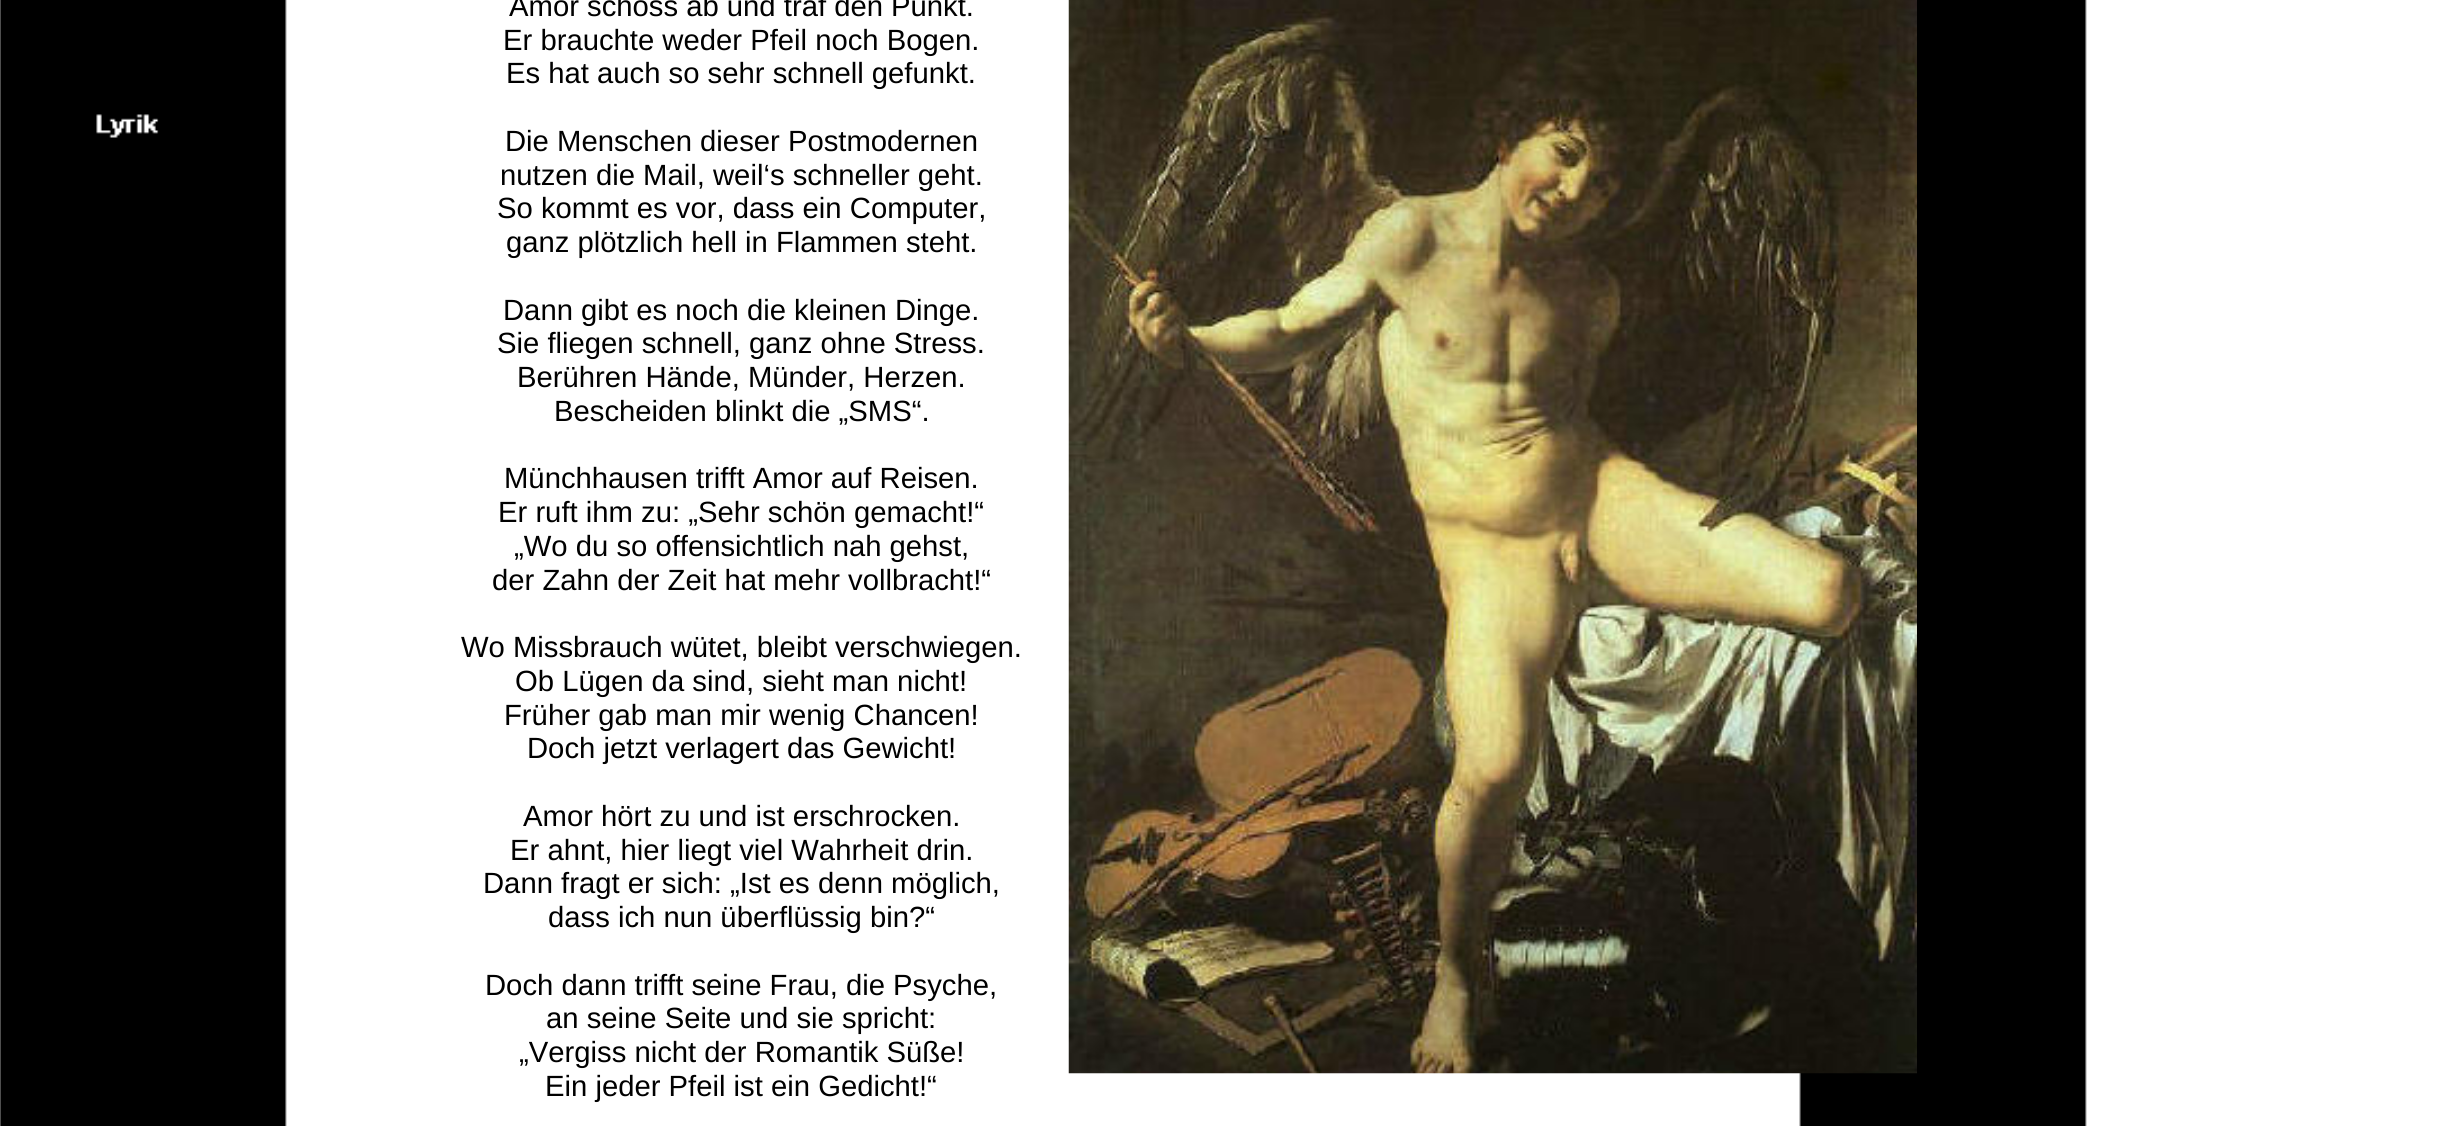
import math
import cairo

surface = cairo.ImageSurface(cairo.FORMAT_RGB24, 2438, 1126)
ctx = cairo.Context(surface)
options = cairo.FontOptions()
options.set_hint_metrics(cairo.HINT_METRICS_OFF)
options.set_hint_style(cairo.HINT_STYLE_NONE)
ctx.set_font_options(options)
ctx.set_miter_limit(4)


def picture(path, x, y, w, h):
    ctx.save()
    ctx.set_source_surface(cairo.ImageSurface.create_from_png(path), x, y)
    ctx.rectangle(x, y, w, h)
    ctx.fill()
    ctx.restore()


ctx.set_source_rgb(1, 1, 1)
ctx.paint()
picture("img1.png", 0, 0, 2087, 1126)
picture("img2.png", 96, 114, 63, 24)
ctx.select_font_face("Liberation Sans")
ctx.set_font_size(29.25)
ctx.set_source_rgb(0, 0, 0)
ctx.move_to(509, 16)
ctx.show_text("Amor schoss ab und traf den Punkt.")
ctx.move_to(503, 50)
ctx.show_text("Er brauchte weder Pfeil noch Bogen.")
ctx.move_to(506, 83)
ctx.show_text("Es hat auch so sehr schnell gefunkt.")
ctx.move_to(505, 151)
ctx.show_text("Die Menschen dieser Postmodernen")
ctx.move_to(500, 185)
ctx.show_text("nutzen die Mail, weil‘s schneller geht.")
ctx.move_to(497, 218)
ctx.show_text("So kommt es vor, dass ein Computer,")
ctx.move_to(506, 252)
ctx.show_text("ganz plötzlich hell in Flammen steht.")
ctx.move_to(503, 320)
ctx.show_text("Dann gibt es noch die kleinen Dinge.")
ctx.move_to(497, 353)
ctx.show_text("Sie fliegen schnell, ganz ohne Stress.")
ctx.move_to(517, 387)
ctx.show_text("Berühren Hände, Münder, Herzen.")
ctx.move_to(554, 421)
ctx.show_text("Bescheiden blinkt die „SMS“.")
ctx.move_to(504, 488)
ctx.show_text("Münchhausen trifft Amor auf Reisen.")
ctx.move_to(498, 522)
ctx.show_text("Er ruft ihm zu: „Sehr schön gemacht!“")
ctx.move_to(514, 556)
ctx.show_text("„Wo du so offensichtlich nah gehst,")
ctx.move_to(492, 590)
ctx.show_text("der Zahn der Zeit hat mehr vollbracht!“")
ctx.move_to(461, 657)
ctx.show_text("Wo Missbrauch wütet, bleibt verschwiegen.")
ctx.move_to(515, 691)
ctx.show_text("Ob Lügen da sind, sieht man nicht!")
ctx.move_to(504, 725)
ctx.show_text("Früher gab man mir wenig Chancen!")
ctx.move_to(527, 758)
ctx.show_text("Doch jetzt verlagert das Gewicht!")
ctx.move_to(523, 826)
ctx.show_text("Amor hört zu und ist erschrocken.")
ctx.move_to(510, 860)
ctx.show_text("Er ahnt, hier liegt viel Wahrheit drin.")
ctx.move_to(483, 893)
ctx.show_text("Dann fragt er sich: „Ist es denn möglich,")
ctx.move_to(548, 927)
ctx.show_text("dass ich nun überflüssig bin?“")
ctx.move_to(485, 995)
ctx.show_text("Doch dann trifft seine Frau, die Psyche,")
ctx.move_to(546, 1028)
ctx.show_text("an seine Seite und sie spricht:")
ctx.move_to(519, 1062)
ctx.show_text("„Vergiss nicht der Romantik Süße!")
ctx.move_to(545, 1096)
ctx.show_text("Ein jeder Pfeil ist ein Gedicht!“")
picture("img3.png", 1068, 0, 849, 1074)
surface.write_to_png("page.png")
